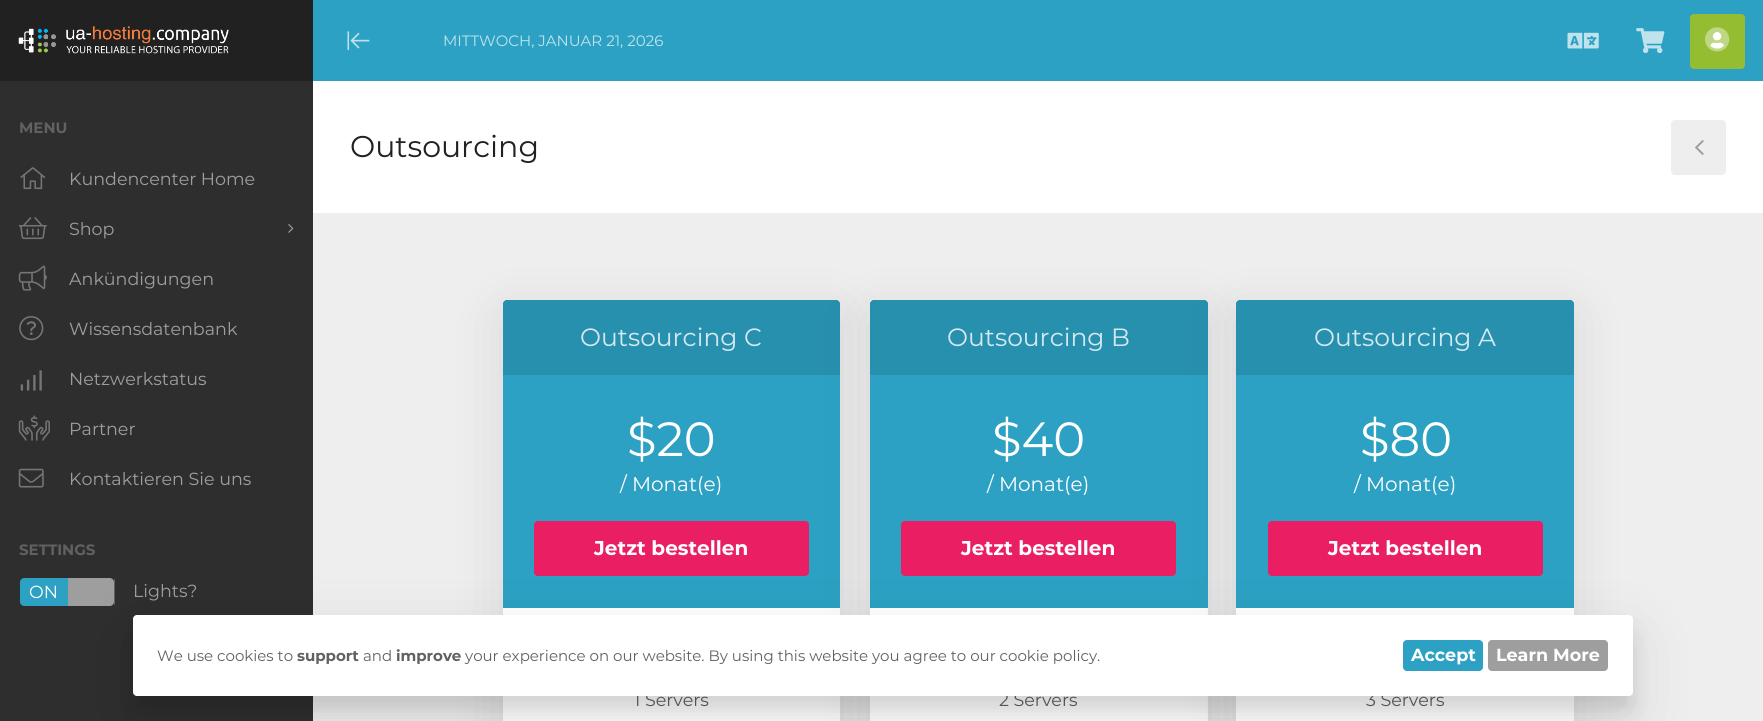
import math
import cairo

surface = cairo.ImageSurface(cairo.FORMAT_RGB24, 1763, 721)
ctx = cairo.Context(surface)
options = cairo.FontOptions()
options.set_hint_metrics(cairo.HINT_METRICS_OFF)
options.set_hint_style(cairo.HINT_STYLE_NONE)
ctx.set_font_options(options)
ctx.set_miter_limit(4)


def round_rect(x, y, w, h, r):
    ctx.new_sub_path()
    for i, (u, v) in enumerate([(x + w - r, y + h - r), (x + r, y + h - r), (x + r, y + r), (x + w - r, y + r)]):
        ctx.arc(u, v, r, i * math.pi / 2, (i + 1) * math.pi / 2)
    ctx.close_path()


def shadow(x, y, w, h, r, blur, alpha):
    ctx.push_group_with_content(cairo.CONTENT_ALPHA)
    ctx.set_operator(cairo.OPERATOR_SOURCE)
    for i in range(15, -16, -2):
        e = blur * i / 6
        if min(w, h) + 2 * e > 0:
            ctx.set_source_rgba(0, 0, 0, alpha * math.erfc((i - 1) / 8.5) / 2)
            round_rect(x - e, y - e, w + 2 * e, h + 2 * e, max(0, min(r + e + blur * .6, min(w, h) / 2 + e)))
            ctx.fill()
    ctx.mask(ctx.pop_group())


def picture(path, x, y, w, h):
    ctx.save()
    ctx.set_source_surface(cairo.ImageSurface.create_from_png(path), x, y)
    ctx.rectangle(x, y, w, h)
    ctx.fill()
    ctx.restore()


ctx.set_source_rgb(0.933, 0.933, 0.933)
ctx.paint()
ctx.set_source_rgb(0.173, 0.631, 0.765)
ctx.rectangle(313, 0, 1450, 81)
ctx.fill()
picture("img1.png", 347, 31, 23, 19)
ctx.select_font_face("Montserrat")
ctx.set_font_size(15)
ctx.set_source_rgb(0.753, 0.89, 0.929)
ctx.move_to(443, 46)
ctx.show_text("MITTWOCH, JANUAR 21, 2026")
picture("img2.png", 1567, 32, 32, 17)
picture("img3.png", 1636, 28, 29, 26)
ctx.set_source_rgb(0.58, 0.741, 0.192)
round_rect(1690, 14, 55, 55, 4)
ctx.fill()
picture("img5.png", 1710, 32, 15, 17)
picture("img4.png", 1705, 27, 25, 25)
ctx.set_source_rgb(0.18, 0.18, 0.18)
ctx.rectangle(0, 81, 313, 640)
ctx.fill()
ctx.set_source_rgb(0.129, 0.129, 0.129)
ctx.rectangle(0, 0, 313, 81)
ctx.fill()
picture("img6.png", 18, 26, 211, 28)
ctx.select_font_face("Montserrat", cairo.FONT_SLANT_NORMAL, cairo.FONT_WEIGHT_BOLD)
ctx.set_source_rgb(0.38, 0.38, 0.38)
ctx.move_to(19, 133)
ctx.show_text("MENU")
picture("img7.png", 20, 167, 26, 23)
ctx.select_font_face("Montserrat")
ctx.set_font_size(17.5)
ctx.set_source_rgb(0.62, 0.62, 0.62)
ctx.move_to(69, 185)
ctx.show_text("Kundencenter Home")
picture("img8.png", 18, 217, 29, 23)
ctx.move_to(69, 235)
ctx.show_text("Shop")
picture("img9.png", 288, 224, 6, 9)
picture("img10.png", 18, 265, 29, 26)
ctx.move_to(69, 285)
ctx.show_text("Ankündigungen")
picture("img11.png", 19, 316, 25, 25)
ctx.move_to(69, 335)
ctx.show_text("Wissensdatenbank")
picture("img12.png", 20, 370, 22, 21)
ctx.move_to(69, 385)
ctx.show_text("Netzwerkstatus")
picture("img13.png", 18, 415, 32, 26)
ctx.move_to(69, 435)
ctx.show_text("Partner")
picture("img14.png", 18, 468, 26, 20)
ctx.move_to(69, 485)
ctx.show_text("Kontaktieren Sie uns")
ctx.select_font_face("Montserrat", cairo.FONT_SLANT_NORMAL, cairo.FONT_WEIGHT_BOLD)
ctx.set_font_size(15)
ctx.set_source_rgb(0.38, 0.38, 0.38)
ctx.move_to(19, 555)
ctx.show_text("SETTINGS")
ctx.set_source_rgb(0.173, 0.631, 0.765)
ctx.new_path()
ctx.move_to(24, 578)
ctx.line_to(68, 578)
ctx.line_to(68, 606)
ctx.line_to(24, 606)
ctx.curve_to(22, 606, 20, 604, 20, 602)
ctx.line_to(20, 582)
ctx.curve_to(20, 580, 22, 578, 24, 578)
ctx.close_path()
ctx.fill()
ctx.select_font_face("Montserrat")
ctx.set_font_size(17.5)
ctx.set_source_rgb(1, 1, 1)
ctx.move_to(29, 598)
ctx.show_text("ON")
ctx.set_source_rgb(0.62, 0.62, 0.62)
ctx.new_path()
ctx.move_to(68, 578)
ctx.line_to(110, 578)
ctx.curve_to(112, 578, 114, 580, 114, 582)
ctx.line_to(114, 602)
ctx.curve_to(114, 604, 112, 606, 110, 606)
ctx.line_to(68, 606)
ctx.close_path()
ctx.fill()
ctx.save()
round_rect(20, 578, 95, 28, 2.5)
ctx.clip()
ctx.set_source_rgb(0.38, 0.38, 0.38)
ctx.rectangle(114, 578, 1, 28)
ctx.fill()
ctx.restore()
ctx.move_to(133, 597)
ctx.show_text("Lights?")
ctx.set_source_rgb(1, 1, 1)
ctx.rectangle(313, 81, 1450, 132)
ctx.fill()
ctx.set_font_size(30)
ctx.set_source_rgb(0.129, 0.129, 0.129)
ctx.move_to(350, 157)
ctx.show_text("Outsourcing")
ctx.set_source_rgb(0.933, 0.933, 0.933)
round_rect(1671, 120, 55, 55, 4)
ctx.fill()
picture("img15.png", 1695, 140, 9, 15)
ctx.set_source_rgb(0, 0, 0)
shadow(503, 313, 337, 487, 4, 25, 0.1)
ctx.set_source_rgb(1, 1, 1)
round_rect(503, 300, 337, 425, 4)
ctx.fill()
ctx.set_source_rgb(0.173, 0.631, 0.765)
ctx.new_path()
ctx.move_to(507, 300)
ctx.line_to(836, 300)
ctx.curve_to(838, 300, 840, 302, 840, 304)
ctx.line_to(840, 608)
ctx.line_to(503, 608)
ctx.line_to(503, 304)
ctx.curve_to(503, 302, 505, 300, 507, 300)
ctx.close_path()
ctx.fill()
ctx.set_source_rgb(0.153, 0.565, 0.682)
ctx.new_path()
ctx.move_to(507, 300)
ctx.line_to(836, 300)
ctx.curve_to(838, 300, 840, 302, 840, 304)
ctx.line_to(840, 375)
ctx.line_to(503, 375)
ctx.line_to(503, 304)
ctx.curve_to(503, 302, 505, 300, 507, 300)
ctx.close_path()
ctx.fill()
ctx.set_font_size(25)
ctx.set_source_rgb(0.831, 0.914, 0.937)
ctx.move_to(580, 346)
ctx.show_text("Outsourcing C")
ctx.set_font_size(48)
ctx.set_source_rgb(1, 1, 1)
ctx.move_to(627, 456)
ctx.show_text("$20")
ctx.set_font_size(20)
ctx.move_to(620, 491)
ctx.show_text("/ Monat(e)")
ctx.set_source_rgb(0.914, 0.118, 0.388)
round_rect(534, 521, 275, 55, 4)
ctx.fill()
ctx.select_font_face("Montserrat", cairo.FONT_SLANT_NORMAL, cairo.FONT_WEIGHT_BOLD)
ctx.set_source_rgb(1, 1, 1)
ctx.move_to(594, 555)
ctx.show_text("Jetzt bestellen")
ctx.select_font_face("Montserrat")
ctx.set_font_size(17.5)
ctx.set_source_rgb(0.38, 0.38, 0.38)
ctx.move_to(634, 706)
ctx.show_text("1 Servers")
ctx.set_source_rgb(0, 0, 0)
shadow(870, 313, 338, 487, 4, 25, 0.1)
ctx.set_source_rgb(1, 1, 1)
round_rect(870, 300, 338, 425, 4)
ctx.fill()
ctx.set_source_rgb(0.173, 0.631, 0.765)
ctx.new_path()
ctx.move_to(874, 300)
ctx.line_to(1204, 300)
ctx.curve_to(1206, 300, 1208, 302, 1208, 304)
ctx.line_to(1208, 608)
ctx.line_to(870, 608)
ctx.line_to(870, 304)
ctx.curve_to(870, 302, 872, 300, 874, 300)
ctx.close_path()
ctx.fill()
ctx.set_source_rgb(0.153, 0.565, 0.682)
ctx.new_path()
ctx.move_to(874, 300)
ctx.line_to(1204, 300)
ctx.curve_to(1206, 300, 1208, 302, 1208, 304)
ctx.line_to(1208, 375)
ctx.line_to(870, 375)
ctx.line_to(870, 304)
ctx.curve_to(870, 302, 872, 300, 874, 300)
ctx.close_path()
ctx.fill()
ctx.set_font_size(25)
ctx.set_source_rgb(0.831, 0.914, 0.937)
ctx.move_to(947, 346)
ctx.show_text("Outsourcing B")
ctx.set_font_size(48)
ctx.set_source_rgb(1, 1, 1)
ctx.move_to(992, 456)
ctx.show_text("$40")
ctx.set_font_size(20)
ctx.move_to(987, 491)
ctx.show_text("/ Monat(e)")
ctx.set_source_rgb(0.914, 0.118, 0.388)
round_rect(901, 521, 275, 55, 4)
ctx.fill()
ctx.select_font_face("Montserrat", cairo.FONT_SLANT_NORMAL, cairo.FONT_WEIGHT_BOLD)
ctx.set_source_rgb(1, 1, 1)
ctx.move_to(961, 555)
ctx.show_text("Jetzt bestellen")
ctx.select_font_face("Montserrat")
ctx.set_font_size(17.5)
ctx.set_source_rgb(0.38, 0.38, 0.38)
ctx.move_to(999, 706)
ctx.show_text("2 Servers")
ctx.set_source_rgb(0, 0, 0)
shadow(1236, 313, 338, 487, 4, 25, 0.1)
ctx.set_source_rgb(1, 1, 1)
round_rect(1236, 300, 338, 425, 4)
ctx.fill()
ctx.set_source_rgb(0.173, 0.631, 0.765)
ctx.new_path()
ctx.move_to(1240, 300)
ctx.line_to(1570, 300)
ctx.curve_to(1572, 300, 1574, 302, 1574, 304)
ctx.line_to(1574, 608)
ctx.line_to(1236, 608)
ctx.line_to(1236, 304)
ctx.curve_to(1236, 302, 1238, 300, 1240, 300)
ctx.close_path()
ctx.fill()
ctx.set_source_rgb(0.153, 0.565, 0.682)
ctx.new_path()
ctx.move_to(1240, 300)
ctx.line_to(1570, 300)
ctx.curve_to(1572, 300, 1574, 302, 1574, 304)
ctx.line_to(1574, 375)
ctx.line_to(1236, 375)
ctx.line_to(1236, 304)
ctx.curve_to(1236, 302, 1238, 300, 1240, 300)
ctx.close_path()
ctx.fill()
ctx.set_font_size(25)
ctx.set_source_rgb(0.831, 0.914, 0.937)
ctx.move_to(1314, 346)
ctx.show_text("Outsourcing A")
ctx.set_font_size(48)
ctx.set_source_rgb(1, 1, 1)
ctx.move_to(1360, 456)
ctx.show_text("$80")
ctx.set_font_size(20)
ctx.move_to(1354, 491)
ctx.show_text("/ Monat(e)")
ctx.set_source_rgb(0.914, 0.118, 0.388)
round_rect(1268, 521, 275, 55, 4)
ctx.fill()
ctx.select_font_face("Montserrat", cairo.FONT_SLANT_NORMAL, cairo.FONT_WEIGHT_BOLD)
ctx.set_source_rgb(1, 1, 1)
ctx.move_to(1328, 555)
ctx.show_text("Jetzt bestellen")
ctx.select_font_face("Montserrat")
ctx.set_font_size(17.5)
ctx.set_source_rgb(0.38, 0.38, 0.38)
ctx.move_to(1366, 706)
ctx.show_text("3 Servers")
ctx.set_source_rgb(0, 0, 0)
shadow(133, 630, 1500, 81, 4, 9.5, 0.1)
shadow(133, 636, 1500, 82, 4, 31, 0.1)
ctx.set_source_rgb(1, 1, 1)
round_rect(133, 615, 1500, 81, 4)
ctx.fill()
ctx.set_font_size(15)
ctx.set_source_rgb(0.38, 0.38, 0.38)
ctx.move_to(157, 661)
ctx.show_text("We use cookies to")
ctx.select_font_face("Montserrat", cairo.FONT_SLANT_NORMAL, cairo.FONT_WEIGHT_BOLD)
ctx.move_to(297, 661)
ctx.show_text("support")
ctx.select_font_face("Montserrat")
ctx.move_to(363, 661)
ctx.show_text("and")
ctx.select_font_face("Montserrat", cairo.FONT_SLANT_NORMAL, cairo.FONT_WEIGHT_BOLD)
ctx.move_to(396, 661)
ctx.show_text("improve")
ctx.select_font_face("Montserrat")
ctx.move_to(465, 661)
ctx.show_text("your experience on our website. By using this website you agree to our cookie policy.")
ctx.set_source_rgb(0.173, 0.631, 0.765)
round_rect(1403.5, 640.5, 79, 30, 3.5)
ctx.fill_preserve()
ctx.set_line_width(1)
ctx.stroke()
ctx.select_font_face("Montserrat", cairo.FONT_SLANT_NORMAL, cairo.FONT_WEIGHT_BOLD)
ctx.set_font_size(17.5)
ctx.set_source_rgb(1, 1, 1)
ctx.move_to(1411, 661)
ctx.show_text("Accept")
ctx.set_source_rgb(0.62, 0.62, 0.62)
round_rect(1488.5, 640.5, 119, 30, 3.5)
ctx.fill_preserve()
ctx.stroke()
ctx.set_source_rgb(1, 1, 1)
ctx.move_to(1496, 661)
ctx.show_text("Learn More")
surface.write_to_png("page.png")
